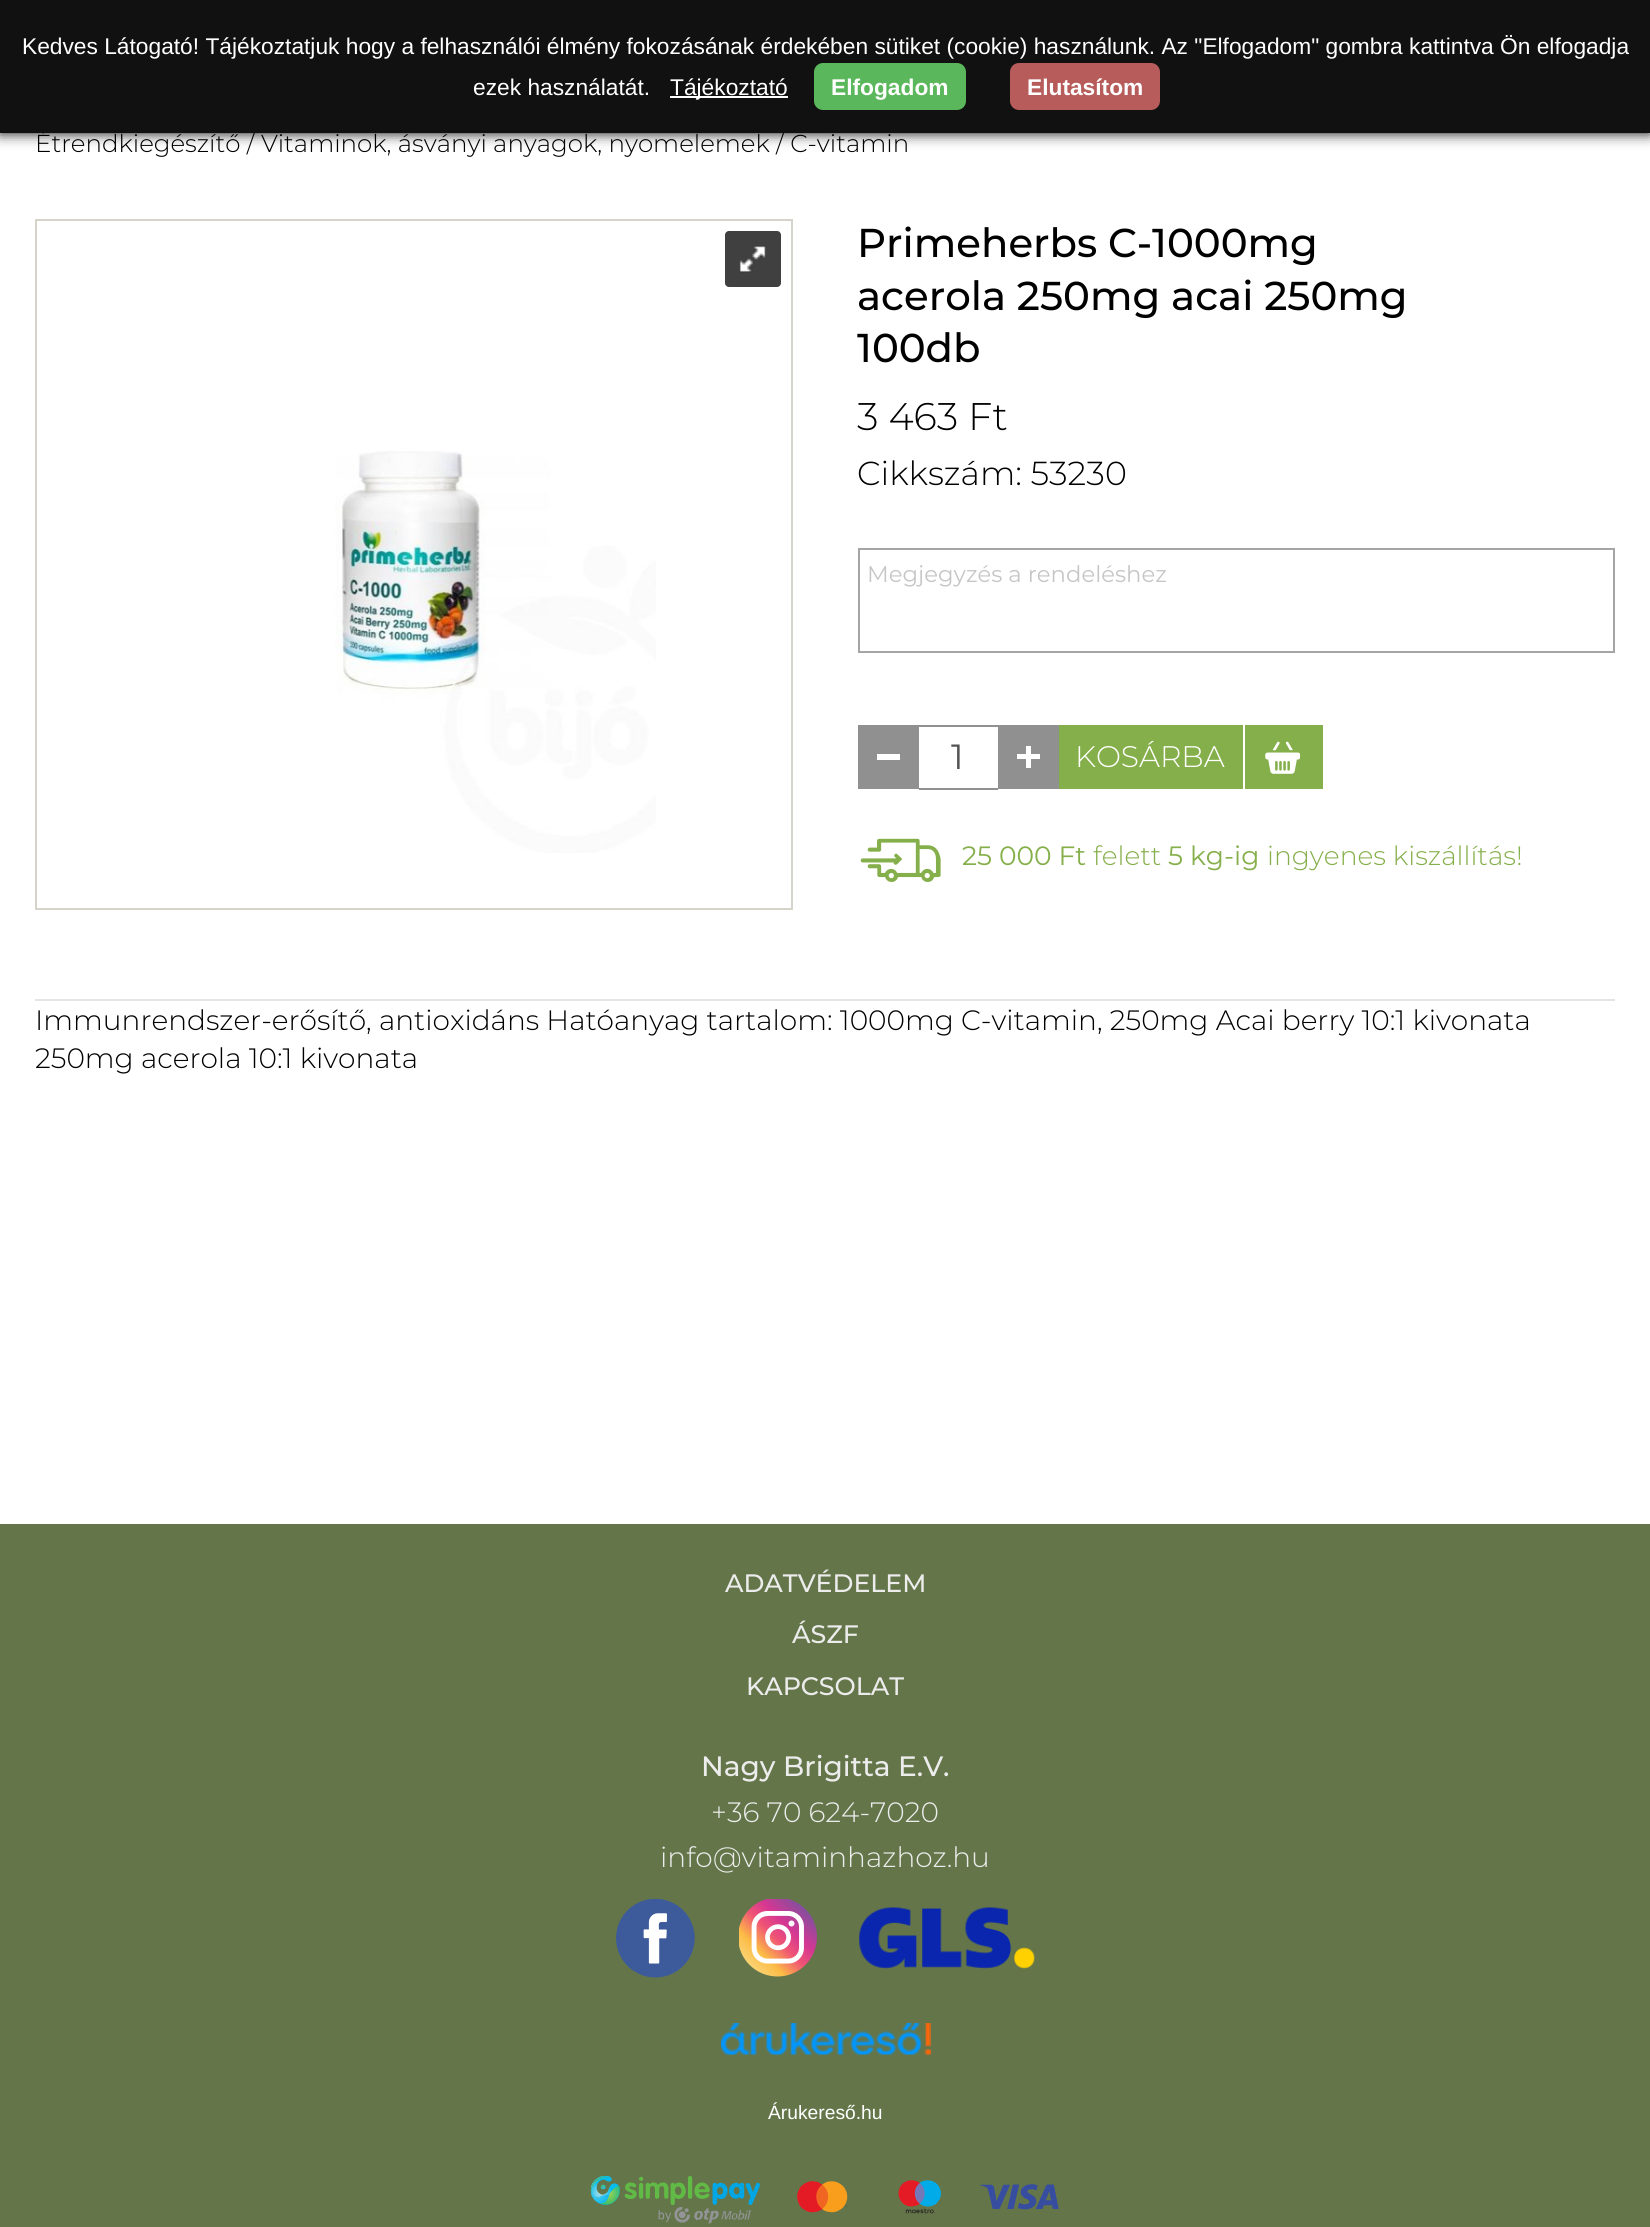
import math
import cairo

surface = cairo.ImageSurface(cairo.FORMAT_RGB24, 1650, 2227)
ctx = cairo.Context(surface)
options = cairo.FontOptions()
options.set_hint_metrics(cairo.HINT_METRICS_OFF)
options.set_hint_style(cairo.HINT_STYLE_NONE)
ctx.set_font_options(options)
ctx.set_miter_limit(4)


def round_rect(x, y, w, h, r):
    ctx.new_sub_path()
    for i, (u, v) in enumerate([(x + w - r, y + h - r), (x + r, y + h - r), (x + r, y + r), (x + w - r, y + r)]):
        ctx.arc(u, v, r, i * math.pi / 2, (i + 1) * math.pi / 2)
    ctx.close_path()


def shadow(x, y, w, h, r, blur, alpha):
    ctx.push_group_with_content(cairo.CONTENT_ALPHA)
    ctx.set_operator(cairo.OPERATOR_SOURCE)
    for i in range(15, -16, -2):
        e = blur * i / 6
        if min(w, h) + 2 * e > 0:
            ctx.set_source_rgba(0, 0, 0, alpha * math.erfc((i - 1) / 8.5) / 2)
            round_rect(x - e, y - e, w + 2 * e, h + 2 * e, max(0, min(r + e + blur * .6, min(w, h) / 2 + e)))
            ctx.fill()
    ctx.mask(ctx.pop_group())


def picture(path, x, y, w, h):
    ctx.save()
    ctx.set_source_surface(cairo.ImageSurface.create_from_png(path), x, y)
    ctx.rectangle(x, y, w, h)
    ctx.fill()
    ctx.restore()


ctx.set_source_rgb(1, 1, 1)
ctx.paint()
ctx.set_source_rgb(0, 0, 0)
shadow(0, 0, 1650, 133, 0, 7, 1)
ctx.select_font_face("Montserrat Light")
ctx.set_font_size(24.5)
ctx.set_source_rgb(0, 0, 0)
ctx.move_to(35, 152)
ctx.show_text("Étrendkiegészítő / Vitaminok, ásványi anyagok, nyomelemek / C-vitamin")
ctx.set_source_rgb(0.067, 0.067, 0.067)
ctx.rectangle(0, 0, 1650, 133)
ctx.fill()
ctx.select_font_face("Liberation Sans")
ctx.set_font_size(22.75)
ctx.set_source_rgb(1, 1, 1)
ctx.move_to(22, 54)
ctx.show_text("Kedves Látogató! Tájékoztatjuk hogy a felhasználói élmény fokozásának érdekében sütiket (cookie) használunk. Az \"Elfogadom\" gombra kattintva Ön elfogadja")
ctx.move_to(473, 95)
ctx.show_text("ezek használatát.")
ctx.rectangle(670, 96, 118, 2)
ctx.fill()
ctx.move_to(670, 95)
ctx.show_text("Tájékoztató")
ctx.set_source_rgb(0.357, 0.718, 0.357)
round_rect(814, 63, 152, 47, 9)
ctx.fill()
ctx.select_font_face("Liberation Sans", cairo.FONT_SLANT_NORMAL, cairo.FONT_WEIGHT_BOLD)
ctx.set_source_rgb(1, 1, 1)
ctx.move_to(831, 95)
ctx.show_text("Elfogadom")
ctx.set_source_rgb(0.718, 0.357, 0.357)
round_rect(1010, 63, 150, 47, 9)
ctx.fill()
ctx.set_source_rgb(1, 1, 1)
ctx.move_to(1027, 95)
ctx.show_text("Elutasítom")
ctx.rectangle(36, 220, 756, 689)
ctx.set_source_rgb(0.839, 0.827, 0.796)
ctx.stroke()
ctx.set_source_rgb(0.251, 0.251, 0.251)
round_rect(725, 231, 56, 56, 4)
ctx.fill()
picture("img1.png", 739, 245, 27, 28)
picture("img2.png", 335, 451, 321, 402)
ctx.select_font_face("Montserrat Medium")
ctx.set_font_size(40.25)
ctx.set_source_rgb(0, 0, 0)
ctx.move_to(857, 257)
ctx.show_text("Primeherbs C-1000mg")
ctx.move_to(857, 310)
ctx.show_text("acerola 250mg acai 250mg")
ctx.move_to(857, 362)
ctx.show_text("100db")
ctx.select_font_face("Montserrat Light")
ctx.set_font_size(38.5)
ctx.move_to(857, 430)
ctx.show_text("3 463 Ft")
ctx.set_font_size(33.25)
ctx.move_to(857, 485)
ctx.show_text("Cikkszám: 53230")
ctx.rectangle(859, 549, 755, 103)
ctx.set_source_rgb(0.647, 0.647, 0.647)
ctx.stroke()
ctx.select_font_face("Montserrat")
ctx.set_font_size(22.75)
ctx.set_source_rgb(0.776, 0.776, 0.776)
ctx.move_to(867, 582)
ctx.show_text("Megjegyzés a rendeléshez")
ctx.set_source_rgb(0.522, 0.686, 0.29)
ctx.rectangle(1059, 725, 264, 64)
ctx.fill()
ctx.set_source_rgb(0.565, 0.565, 0.565)
ctx.rectangle(858, 725, 61, 64)
ctx.fill()
ctx.set_source_rgb(1, 1, 1)
ctx.rectangle(877, 754, 23, 6)
ctx.fill()
ctx.set_source_rgb(0.565, 0.565, 0.565)
ctx.rectangle(919, 725, 79, 2)
ctx.fill()
ctx.rectangle(919, 788, 79, 2)
ctx.fill()
ctx.set_font_size(35)
ctx.set_source_rgb(0.322, 0.322, 0.322)
ctx.move_to(951, 769)
ctx.show_text("1")
ctx.set_source_rgb(0.565, 0.565, 0.565)
ctx.rectangle(998, 725, 61, 64)
ctx.fill()
ctx.set_source_rgb(1, 1, 1)
ctx.rectangle(1026, 746, 5, 22)
ctx.fill()
ctx.rectangle(1017, 754, 23, 5)
ctx.fill()
picture("img3.png", 1265, 741, 35, 33)
ctx.rectangle(1243, 725, 2, 64)
ctx.fill()
ctx.select_font_face("Montserrat Light")
ctx.set_font_size(29.75)
ctx.move_to(1075, 767)
ctx.show_text("KOSÁRBA")
picture("img4.png", 860, 838, 81, 44)
ctx.select_font_face("Montserrat")
ctx.set_font_size(26.5)
ctx.set_source_rgb(0.522, 0.686, 0.29)
ctx.move_to(962, 865)
ctx.show_text("25 000 Ft")
ctx.select_font_face("Montserrat Light")
ctx.move_to(1093, 865)
ctx.show_text("felett")
ctx.select_font_face("Montserrat")
ctx.move_to(1168, 865)
ctx.show_text("5 kg-ig")
ctx.select_font_face("Montserrat Light")
ctx.move_to(1267, 865)
ctx.show_text("ingyenes kiszállítás!")
ctx.set_source_rgb(0.89, 0.89, 0.91)
ctx.rectangle(35, 999, 1580, 2)
ctx.fill()
ctx.set_font_size(28)
ctx.set_source_rgb(0, 0, 0)
ctx.move_to(35, 1030)
ctx.show_text("Immunrendszer-erősítő, antioxidáns Hatóanyag tartalom: 1000mg C-vitamin, 250mg Acai berry 10:1 kivonata")
ctx.move_to(35, 1068)
ctx.show_text("250mg acerola 10:1 kivonata")
ctx.set_source_rgb(0.392, 0.463, 0.286)
ctx.rectangle(0, 1524, 1650, 703)
ctx.fill()
ctx.select_font_face("Montserrat Medium")
ctx.set_font_size(25.25)
ctx.set_source_rgb(0.922, 0.922, 0.922)
ctx.move_to(725, 1592)
ctx.show_text("ADATVÉDELEM")
ctx.move_to(792, 1643)
ctx.show_text("ÁSZF")
ctx.move_to(746, 1695)
ctx.show_text("KAPCSOLAT")
ctx.set_font_size(28)
ctx.move_to(701, 1776)
ctx.show_text("Nagy Brigitta E.V.")
ctx.select_font_face("Montserrat Light")
ctx.move_to(711, 1822)
ctx.show_text("+36 70 624-7020")
ctx.move_to(660, 1867)
ctx.show_text("info@vitaminhazhoz.hu")
picture("img5.png", 616, 1899, 79, 79)
picture("img6.png", 739, 1899, 78, 78)
picture("img7.png", 859, 1907, 176, 62)
picture("img8.png", 721, 2023, 210, 32)
ctx.select_font_face("Liberation Sans")
ctx.set_font_size(19.25)
ctx.set_source_rgb(1, 1, 1)
ctx.move_to(768, 2119)
ctx.show_text("Árukereső.hu")
picture("img9.png", 590, 2175, 469, 49)
surface.write_to_png("page.png")
